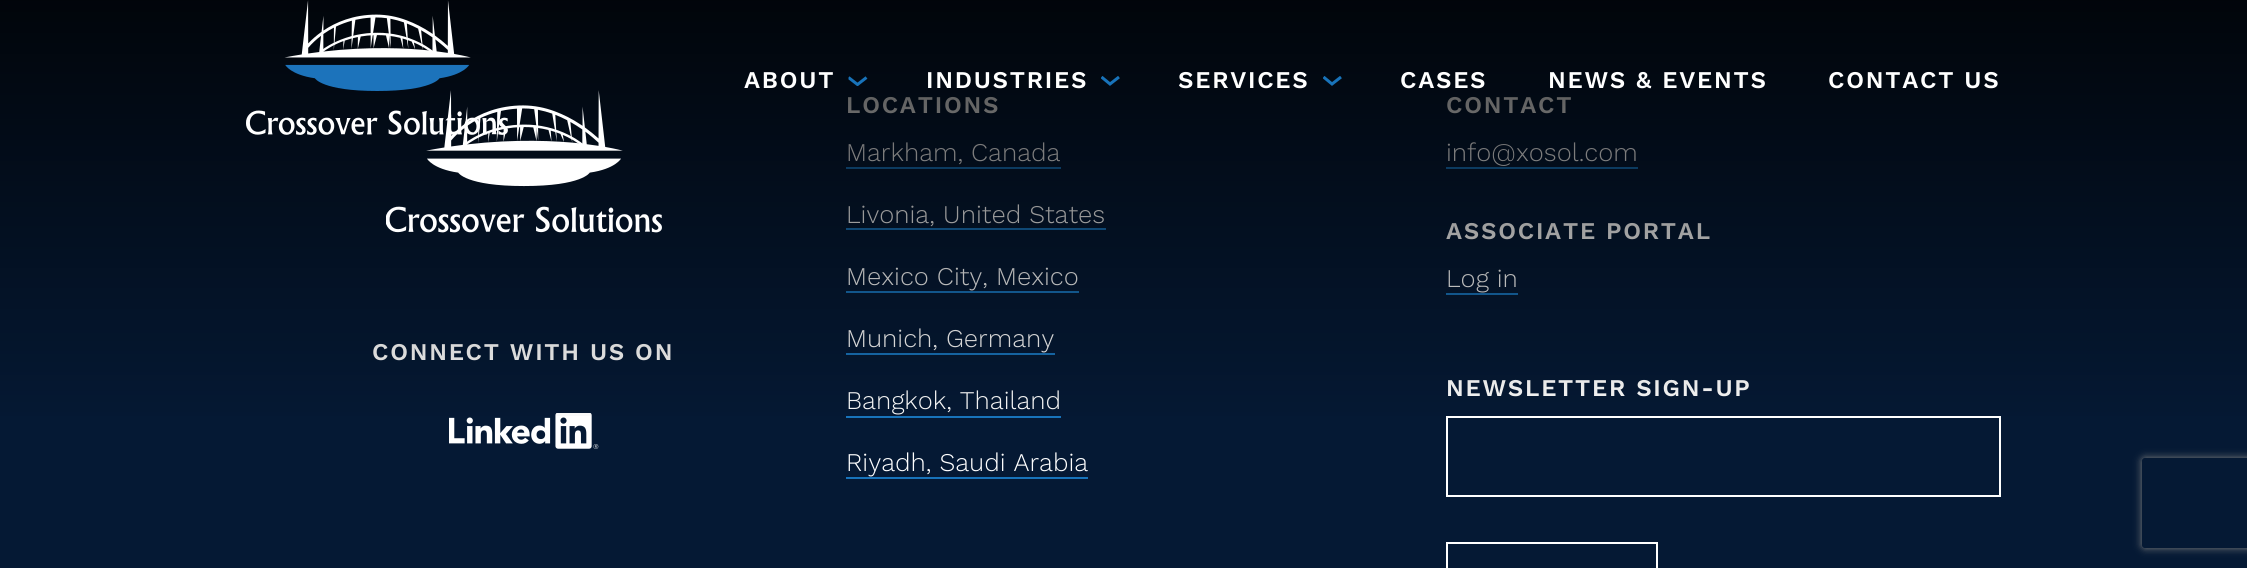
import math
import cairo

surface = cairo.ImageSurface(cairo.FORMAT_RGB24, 2247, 568)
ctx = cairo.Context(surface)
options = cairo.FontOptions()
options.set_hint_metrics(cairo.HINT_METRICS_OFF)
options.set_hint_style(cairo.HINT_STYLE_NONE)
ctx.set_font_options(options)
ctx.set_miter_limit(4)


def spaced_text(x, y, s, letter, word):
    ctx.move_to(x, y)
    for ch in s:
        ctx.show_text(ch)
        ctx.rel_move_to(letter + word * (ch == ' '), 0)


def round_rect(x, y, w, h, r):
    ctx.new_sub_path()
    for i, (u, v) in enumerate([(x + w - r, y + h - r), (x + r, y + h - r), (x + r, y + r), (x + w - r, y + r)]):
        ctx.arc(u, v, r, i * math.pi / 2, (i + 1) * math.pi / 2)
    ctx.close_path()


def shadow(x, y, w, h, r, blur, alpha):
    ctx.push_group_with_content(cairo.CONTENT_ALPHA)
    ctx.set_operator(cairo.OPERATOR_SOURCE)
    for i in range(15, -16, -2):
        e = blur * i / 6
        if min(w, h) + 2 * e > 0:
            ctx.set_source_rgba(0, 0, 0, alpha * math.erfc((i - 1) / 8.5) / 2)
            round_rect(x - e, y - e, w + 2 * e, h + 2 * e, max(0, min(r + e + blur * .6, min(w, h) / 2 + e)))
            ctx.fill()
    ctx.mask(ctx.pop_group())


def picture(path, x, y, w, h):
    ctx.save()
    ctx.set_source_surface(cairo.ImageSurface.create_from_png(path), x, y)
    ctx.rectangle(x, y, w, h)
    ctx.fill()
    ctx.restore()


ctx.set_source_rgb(0.02, 0.098, 0.204)
ctx.paint()
ctx.select_font_face("Work Sans SemiBold")
ctx.set_font_size(24)
ctx.set_source_rgb(1, 1, 1)
spaced_text(372, 360, "CONNECT WITH US ON", 1.75, 0)
picture("img3.png", 449, 413, 150, 36)
spaced_text(846, 113, "LOCATIONS", 1.75, 0)
ctx.select_font_face("Work Sans Light")
ctx.set_font_size(25.5)
ctx.move_to(846, 161)
ctx.show_text("Markham, Canada")
ctx.set_source_rgb(0.094, 0.451, 0.729)
ctx.rectangle(846, 167, 215, 2)
ctx.fill()
ctx.set_source_rgb(1, 1, 1)
ctx.move_to(846, 223)
ctx.show_text("Livonia, United States")
ctx.set_source_rgb(0.094, 0.451, 0.729)
ctx.rectangle(846, 228, 260, 2)
ctx.fill()
ctx.set_source_rgb(1, 1, 1)
ctx.move_to(846, 285)
ctx.show_text("Mexico City, Mexico")
ctx.set_source_rgb(0.094, 0.451, 0.729)
ctx.rectangle(846, 291, 233, 2)
ctx.fill()
ctx.set_source_rgb(1, 1, 1)
ctx.move_to(846, 347)
ctx.show_text("Munich, Germany")
ctx.set_source_rgb(0.094, 0.451, 0.729)
ctx.rectangle(846, 353, 209, 2)
ctx.fill()
ctx.set_source_rgb(1, 1, 1)
ctx.move_to(846, 409)
ctx.show_text("Bangkok, Thailand")
ctx.select_font_face("Work Sans SemiBold")
ctx.set_font_size(24)
spaced_text(1446, 113, "CONTACT", 1.75, 0)
ctx.select_font_face("Work Sans Light")
ctx.set_font_size(25.5)
ctx.move_to(1446, 161)
ctx.show_text("info@xosol.com")
ctx.set_source_rgb(0.094, 0.451, 0.729)
ctx.rectangle(1446, 167, 192, 2)
ctx.fill()
ctx.select_font_face("Work Sans SemiBold")
ctx.set_font_size(24)
ctx.set_source_rgb(1, 1, 1)
spaced_text(1446, 239, "ASSOCIATE PORTAL", 1.75, 0)
ctx.select_font_face("Work Sans Light")
ctx.set_font_size(25.5)
ctx.move_to(1446, 287)
ctx.show_text("Log in")
ctx.set_source_rgb(0.094, 0.451, 0.729)
ctx.rectangle(1446, 293, 72, 2)
ctx.fill()
ctx.select_font_face("Work Sans SemiBold")
ctx.set_font_size(24)
ctx.set_source_rgb(1, 1, 1)
spaced_text(1446, 396, "NEWSLETTER SIGN-UP", 1.75, 0)
gradient = cairo.LinearGradient(1124, 428, 1124, 0)
gradient.add_color_stop_rgba(0, 0, 0, 0, 0)
gradient.add_color_stop_rgba(1, 0, 0, 0, 0.8)
ctx.set_source(gradient)
ctx.rectangle(0, 0, 2247, 416)
ctx.fill()
picture("img2.png", 386, 90, 276, 143)
picture("img1.png", 246, 0, 262, 135)
ctx.set_source_rgb(1, 1, 1)
spaced_text(744, 88, "ABOUT", 1.75, 0)
ctx.save()
ctx.new_path()
ctx.move_to(868, 73.5)
ctx.line_to(868, 88.5)
ctx.line_to(848.5, 88.5)
ctx.line_to(848.5, 73.5)
ctx.close_path()
ctx.clip()
ctx.new_path()
ctx.move_to(868, 76)
ctx.line_to(868, 86)
ctx.line_to(848.5, 86)
ctx.line_to(848.5, 76)
ctx.close_path()
ctx.clip()
ctx.new_path()
ctx.move_to(866.5, 77.5)
ctx.line_to(857.5, 84.5)
ctx.line_to(848.5, 77.5)
ctx.set_source_rgb(0.094, 0.451, 0.729)
ctx.set_line_width(3)
ctx.stroke()
ctx.restore()
spaced_text(926, 88, "INDUSTRIES", 1.75, 0)
ctx.save()
ctx.new_path()
ctx.move_to(1120.5, 76)
ctx.line_to(1120.5, 86)
ctx.line_to(1101, 86)
ctx.line_to(1101, 76)
ctx.close_path()
ctx.clip()
ctx.new_path()
ctx.move_to(1119, 77)
ctx.line_to(1110, 84)
ctx.line_to(1101.5, 77)
ctx.set_source_rgb(0.094, 0.451, 0.729)
ctx.set_line_width(3)
ctx.stroke()
ctx.restore()
spaced_text(1178, 88, "SERVICES", 1.75, 0)
ctx.save()
ctx.new_path()
ctx.move_to(1342.5, 76)
ctx.line_to(1342.5, 86)
ctx.line_to(1323, 86)
ctx.line_to(1323, 76)
ctx.close_path()
ctx.clip()
ctx.new_path()
ctx.move_to(1341, 77)
ctx.line_to(1332, 84)
ctx.line_to(1323.5, 77)
ctx.set_source_rgb(0.094, 0.451, 0.729)
ctx.set_line_width(3)
ctx.stroke()
ctx.restore()
spaced_text(1400, 88, "CASES", 1.75, 0)
spaced_text(1548, 88, "NEWS & EVENTS", 1.75, 0)
spaced_text(1828, 88, "CONTACT US", 1.75, 0)
ctx.set_source_rgb(0.094, 0.451, 0.729)
ctx.rectangle(846, 416, 215, 2)
ctx.fill()
ctx.select_font_face("Work Sans Light")
ctx.set_font_size(25.5)
ctx.set_source_rgb(1, 1, 1)
ctx.move_to(846, 471)
ctx.show_text("Riyadh, Saudi Arabia")
ctx.set_source_rgb(0.094, 0.451, 0.729)
ctx.rectangle(846, 477, 242, 2)
ctx.fill()
ctx.rectangle(1447, 417, 553, 79)
ctx.set_source_rgb(1, 1, 1)
ctx.stroke()
ctx.rectangle(1447, 543, 210, 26)
ctx.stroke()
ctx.save()
ctx.set_fill_rule(cairo.FILL_RULE_EVEN_ODD)
ctx.new_path()
ctx.move_to(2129, 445)
ctx.line_to(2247, 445)
ctx.line_to(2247, 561)
ctx.line_to(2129, 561)
ctx.close_path()
ctx.move_to(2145, 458)
ctx.line_to(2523, 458)
ctx.curve_to(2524.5, 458, 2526, 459.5, 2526, 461)
ctx.line_to(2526, 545)
ctx.curve_to(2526, 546.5, 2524.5, 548, 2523, 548)
ctx.line_to(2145, 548)
ctx.curve_to(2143.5, 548, 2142, 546.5, 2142, 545)
ctx.line_to(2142, 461)
ctx.curve_to(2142, 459.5, 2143.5, 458, 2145, 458)
ctx.close_path()
ctx.clip()
ctx.set_source_rgb(0.502, 0.502, 0.502)
shadow(2142, 458, 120, 90, 3, 4, 1)
ctx.restore()
surface.write_to_png("page.png")
